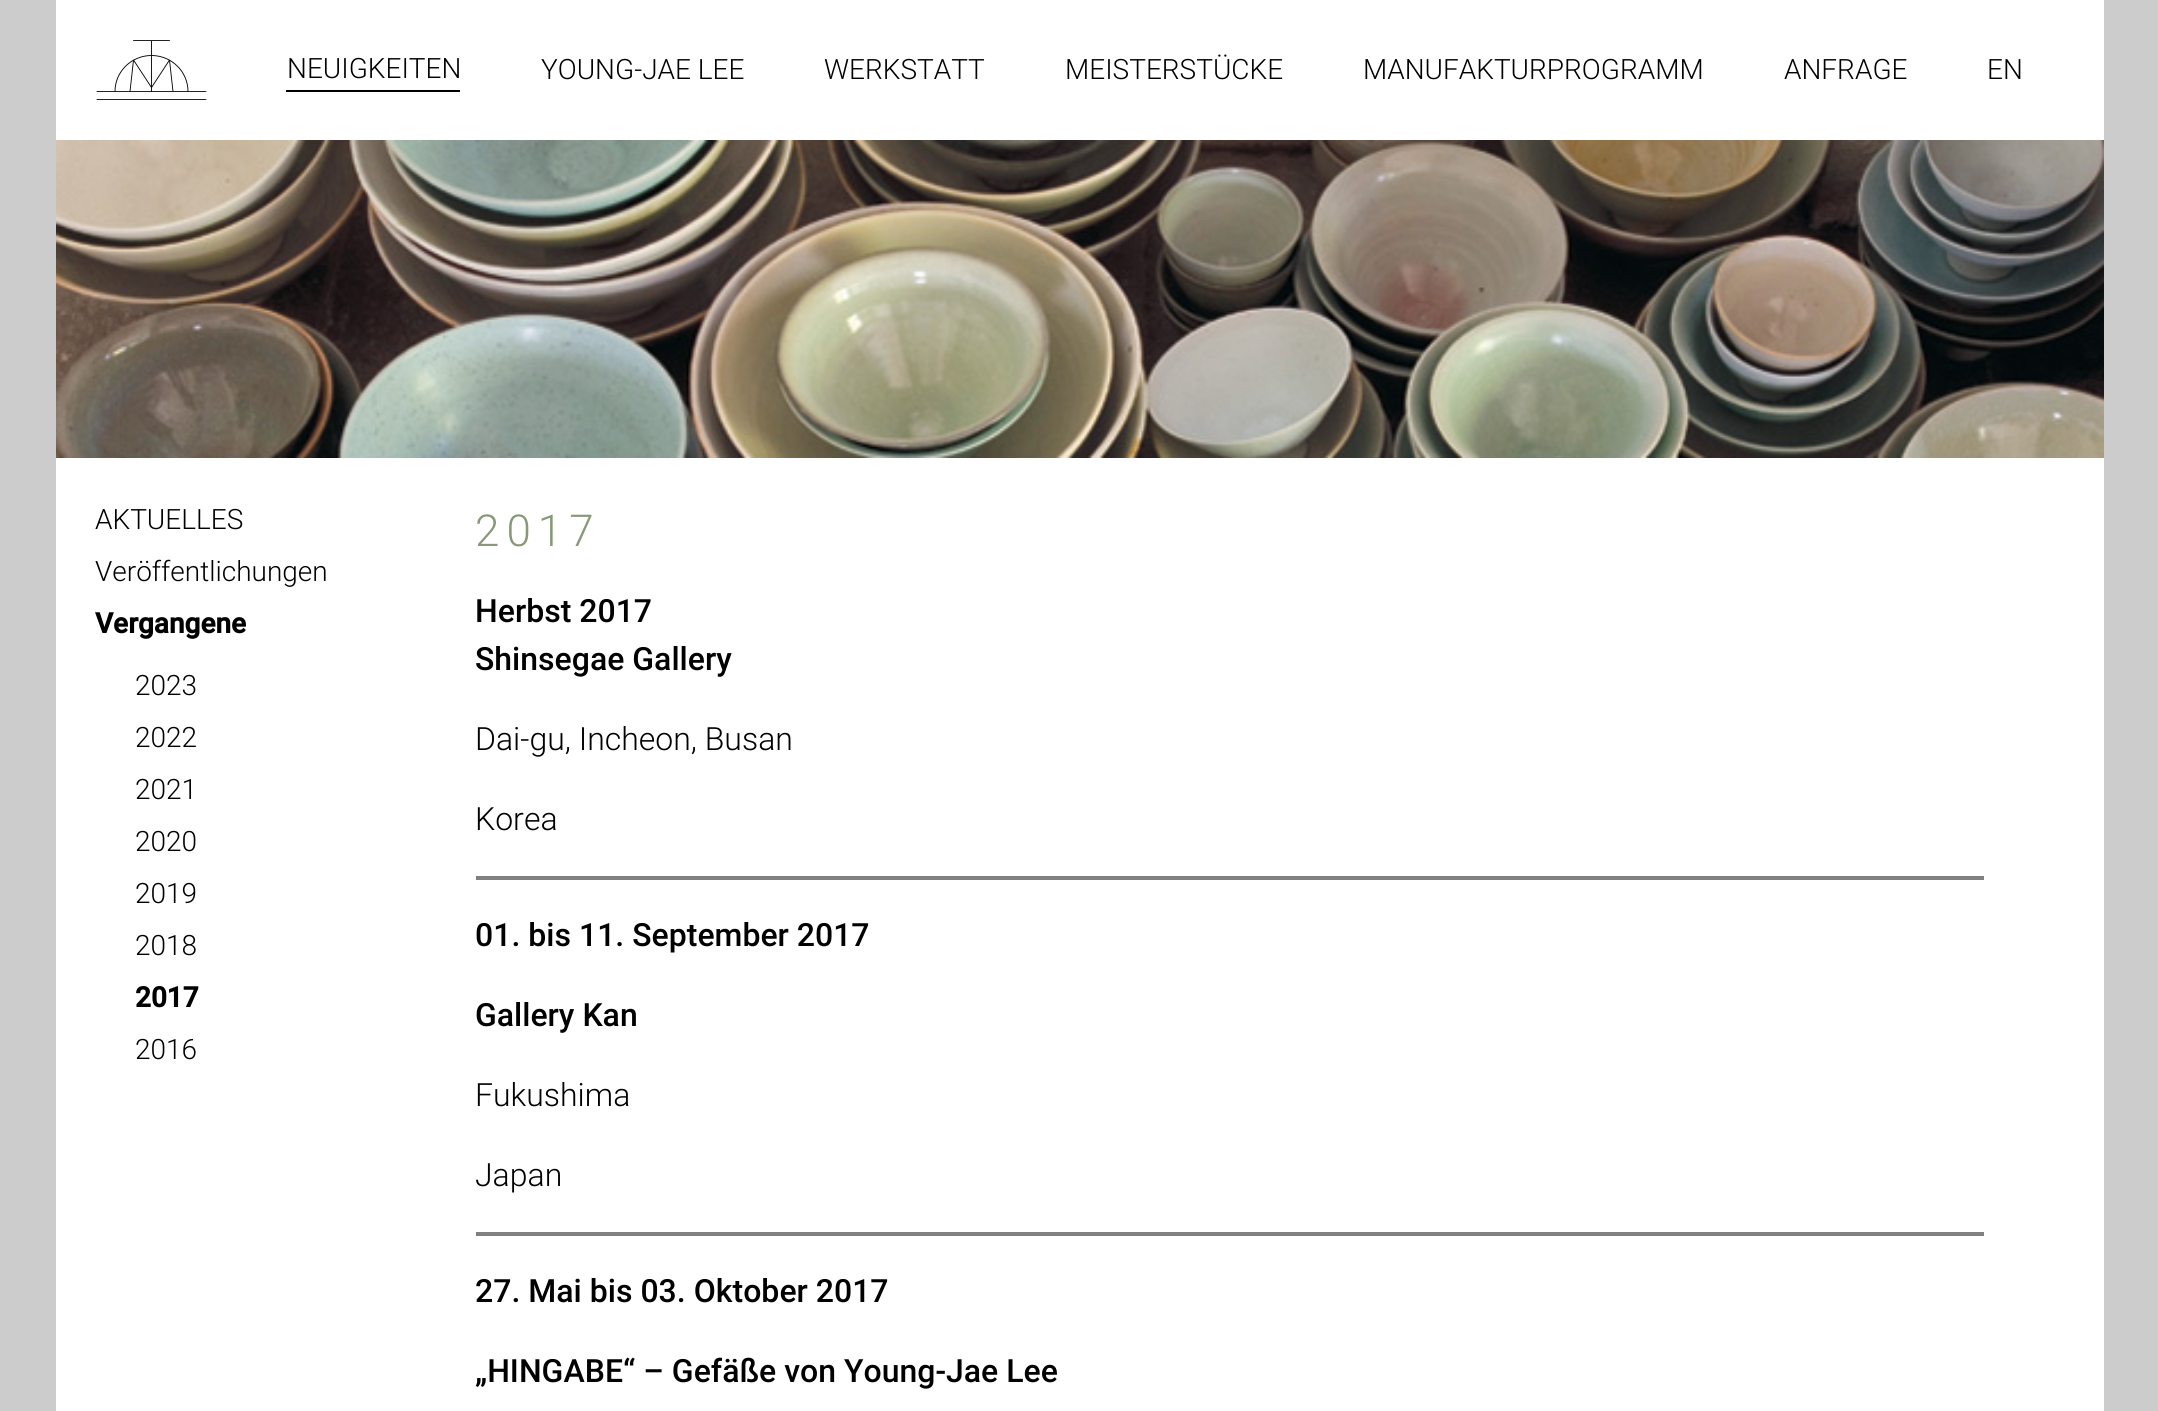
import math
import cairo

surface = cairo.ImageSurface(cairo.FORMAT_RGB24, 2158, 1411)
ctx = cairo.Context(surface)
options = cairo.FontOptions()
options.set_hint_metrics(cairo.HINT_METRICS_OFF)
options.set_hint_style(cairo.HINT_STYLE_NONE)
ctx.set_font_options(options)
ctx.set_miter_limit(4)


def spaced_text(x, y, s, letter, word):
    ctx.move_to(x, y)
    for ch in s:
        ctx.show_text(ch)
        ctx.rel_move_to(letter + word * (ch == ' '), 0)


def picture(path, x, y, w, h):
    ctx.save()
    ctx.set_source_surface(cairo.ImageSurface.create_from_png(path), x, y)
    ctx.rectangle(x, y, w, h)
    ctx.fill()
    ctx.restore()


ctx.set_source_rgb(0.8, 0.8, 0.8)
ctx.paint()
ctx.set_source_rgb(1, 1, 1)
ctx.rectangle(56, 0, 2048, 140)
ctx.fill()
ctx.new_path()
ctx.move_to(97, 91.5)
ctx.line_to(206, 91.5)
ctx.set_source_rgb(0.004, 0.008, 0.008)
ctx.set_line_width(0.9)
ctx.set_line_cap(cairo.LINE_CAP_ROUND)
ctx.stroke()
ctx.new_path()
ctx.move_to(97, 99.5)
ctx.line_to(206, 99.5)
ctx.stroke()
ctx.set_source_rgba(0.004, 0.008, 0.008, 0.9)
ctx.rectangle(151, 41, 1, 51)
ctx.fill()
ctx.new_path()
ctx.move_to(133.5, 40.5)
ctx.line_to(169.5, 40.5)
ctx.set_source_rgb(0.004, 0.008, 0.008)
ctx.stroke()
ctx.new_path()
ctx.move_to(130, 91.5)
ctx.line_to(133.5, 60)
ctx.line_to(151.5, 87.5)
ctx.line_to(169.5, 60)
ctx.line_to(173, 91.5)
ctx.set_line_cap(cairo.LINE_CAP_BUTT)
ctx.set_line_join(cairo.LINE_JOIN_BEVEL)
ctx.stroke()
ctx.new_path()
ctx.move_to(115, 91.5)
ctx.curve_to(115, 71.5, 131.5, 55.5, 151.5, 55.5)
ctx.curve_to(171.5, 55.5, 188, 71.5, 188, 91.5)
ctx.set_line_join(cairo.LINE_JOIN_MITER)
ctx.stroke()
ctx.set_source_rgb(0, 0, 0)
ctx.rectangle(286, 90, 174, 2)
ctx.fill()
ctx.select_font_face("Roboto Light")
ctx.set_font_size(28)
ctx.move_to(287, 78)
ctx.show_text("NEUIGKEITEN")
ctx.move_to(541, 79)
ctx.show_text("YOUNG-JAE LEE")
ctx.move_to(824, 79)
ctx.show_text("WERKSTATT")
ctx.move_to(1065, 79)
ctx.show_text("MEISTERSTÜCKE")
ctx.move_to(1363, 79)
ctx.show_text("MANUFAKTURPROGRAMM")
ctx.move_to(1784, 79)
ctx.show_text("ANFRAGE")
ctx.move_to(1987, 79)
ctx.show_text("EN")
ctx.set_source_rgb(1, 1, 1)
ctx.rectangle(56, 458, 2048, 953)
ctx.fill()
picture("img1.png", 56, 140, 2048, 318)
ctx.set_source_rgb(0, 0, 0)
ctx.move_to(95, 529)
ctx.show_text("AKTUELLES")
ctx.move_to(95, 581)
ctx.show_text("Veröffentlichungen")
ctx.select_font_face("Roboto", cairo.FONT_SLANT_NORMAL, cairo.FONT_WEIGHT_BOLD)
ctx.move_to(95, 633)
ctx.show_text("Vergangene")
ctx.select_font_face("Roboto Light")
ctx.move_to(135, 695)
ctx.show_text("2023")
ctx.move_to(135, 747)
ctx.show_text("2022")
ctx.move_to(135, 799)
ctx.show_text("2021")
ctx.move_to(135, 851)
ctx.show_text("2020")
ctx.move_to(135, 903)
ctx.show_text("2019")
ctx.move_to(135, 955)
ctx.show_text("2018")
ctx.select_font_face("Roboto", cairo.FONT_SLANT_NORMAL, cairo.FONT_WEIGHT_BOLD)
ctx.move_to(135, 1007)
ctx.show_text("2017")
ctx.select_font_face("Roboto Light")
ctx.move_to(135, 1059)
ctx.show_text("2016")
ctx.set_font_size(44)
ctx.set_source_rgb(0.533, 0.6, 0.467)
spaced_text(475, 546, "2017", 7, 0)
ctx.select_font_face("Roboto Medium")
ctx.set_font_size(32)
ctx.set_source_rgb(0, 0, 0)
ctx.move_to(475, 622)
ctx.show_text("Herbst 2017")
ctx.move_to(475, 670)
ctx.show_text("Shinsegae Gallery")
ctx.select_font_face("Roboto Light")
ctx.move_to(475, 750)
ctx.show_text("Dai-gu, Incheon, Busan")
ctx.move_to(475, 830)
ctx.show_text("Korea")
ctx.set_source_rgb(0.502, 0.502, 0.502)
ctx.rectangle(476, 876, 1508, 4)
ctx.fill()
ctx.select_font_face("Roboto Medium")
ctx.set_source_rgb(0, 0, 0)
ctx.move_to(475, 946)
ctx.show_text("01. bis 11. September 2017")
ctx.move_to(475, 1026)
ctx.show_text("Gallery Kan")
ctx.select_font_face("Roboto Light")
ctx.move_to(475, 1106)
ctx.show_text("Fukushima")
ctx.move_to(475, 1186)
ctx.show_text("Japan")
ctx.set_source_rgb(0.502, 0.502, 0.502)
ctx.rectangle(476, 1232, 1508, 4)
ctx.fill()
ctx.select_font_face("Roboto Medium")
ctx.set_source_rgb(0, 0, 0)
ctx.move_to(475, 1302)
ctx.show_text("27. Mai bis 03. Oktober 2017")
ctx.move_to(475, 1382)
ctx.show_text("„HINGABE“ – Gefäße von Young-Jae Lee")
surface.write_to_png("page.png")
